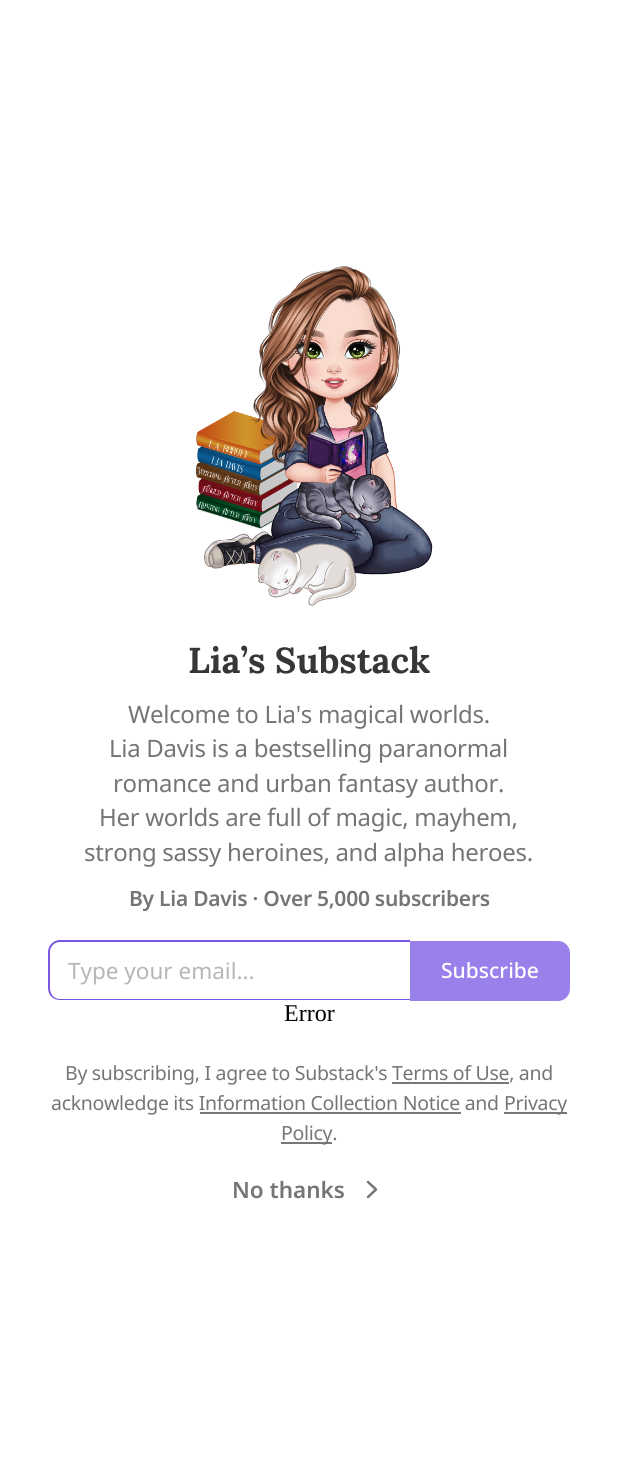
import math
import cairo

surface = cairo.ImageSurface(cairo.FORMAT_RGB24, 617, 1477)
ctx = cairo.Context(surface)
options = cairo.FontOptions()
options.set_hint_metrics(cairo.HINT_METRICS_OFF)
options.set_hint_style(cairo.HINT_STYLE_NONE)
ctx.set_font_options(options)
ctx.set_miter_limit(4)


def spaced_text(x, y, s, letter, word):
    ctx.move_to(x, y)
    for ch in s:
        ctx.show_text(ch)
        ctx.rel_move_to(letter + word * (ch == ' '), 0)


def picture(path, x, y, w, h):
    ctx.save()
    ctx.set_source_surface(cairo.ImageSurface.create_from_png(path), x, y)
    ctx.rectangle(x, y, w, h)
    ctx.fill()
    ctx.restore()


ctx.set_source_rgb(1, 1, 1)
ctx.paint()
picture("img1.png", 195, 266, 238, 340)
ctx.select_font_face("Lora", cairo.FONT_SLANT_NORMAL, cairo.FONT_WEIGHT_BOLD)
ctx.set_font_size(36)
ctx.set_source_rgb(0.212, 0.216, 0.216)
ctx.move_to(188, 673)
ctx.show_text("Lia’s Substack")
ctx.select_font_face("Noto Sans")
ctx.set_font_size(24)
ctx.set_source_rgb(0.459, 0.459, 0.459)
spaced_text(128, 723, "Welcome to Lia's magical worlds.", -0.3, 0)
spaced_text(109, 757, "Lia Davis is a bestselling paranormal", -0.3, 0)
spaced_text(113, 792, "romance and urban fantasy author.", -0.3, 0)
spaced_text(99, 826, "Her worlds are full of magic, mayhem,", -0.3, 0)
spaced_text(84, 861, "strong sassy heroines, and alpha heroes.", -0.3, 0)
ctx.select_font_face("Noto Sans SemiBold")
ctx.set_font_size(21)
spaced_text(129, 906, "By Lia Davis · Over 5,000 subscribers", -0.25, 0)
ctx.set_source_rgb(0.467, 0.337, 0.89)
ctx.set_fill_rule(cairo.FILL_RULE_EVEN_ODD)
ctx.new_path()
ctx.move_to(60, 940)
ctx.line_to(410, 940)
ctx.line_to(410, 1000)
ctx.line_to(60, 1000)
ctx.curve_to(53, 1000, 48, 995, 48, 988)
ctx.line_to(48, 952)
ctx.curve_to(48, 946, 53, 940, 60, 940)
ctx.close_path()
ctx.move_to(60, 942)
ctx.line_to(410, 942)
ctx.line_to(410, 999)
ctx.line_to(60, 999)
ctx.curve_to(54, 999, 50, 994, 50, 988)
ctx.line_to(50, 952)
ctx.curve_to(50, 947, 54, 942, 60, 942)
ctx.close_path()
ctx.fill()
ctx.select_font_face("Noto Sans")
ctx.set_font_size(22.5)
ctx.set_source_rgb(0.714, 0.714, 0.714)
ctx.move_to(68, 979)
ctx.show_text("Type your email...")
ctx.set_source_rgb(0.6, 0.502, 0.918)
ctx.new_path()
ctx.move_to(411, 942)
ctx.line_to(558, 942)
ctx.curve_to(564, 942, 569, 947, 569, 953)
ctx.line_to(569, 989)
ctx.curve_to(569, 995, 564, 1000, 558, 1000)
ctx.line_to(411, 1000)
ctx.close_path()
ctx.fill_preserve()
ctx.stroke()
ctx.select_font_face("Noto Sans Medium")
ctx.set_font_size(21)
ctx.set_source_rgb(1, 1, 1)
ctx.move_to(441, 978)
ctx.show_text("Subscribe")
ctx.select_font_face("Liberation Serif")
ctx.set_font_size(24)
ctx.set_source_rgb(0, 0, 0)
ctx.move_to(284, 1021)
ctx.show_text("Error")
ctx.select_font_face("Noto Sans")
ctx.set_font_size(19.5)
ctx.set_source_rgb(0.459, 0.459, 0.459)
spaced_text(65, 1080, "By subscribing, I agree to Substack's Terms of Use, and", -0.3, 0)
ctx.set_source_rgb(0.467, 0.467, 0.467)
ctx.rectangle(392, 1082, 117, 2)
ctx.fill()
ctx.set_source_rgb(0.459, 0.459, 0.459)
spaced_text(51, 1110, "acknowledge its Information Collection Notice and", -0.3, 0)
ctx.set_source_rgb(0.467, 0.467, 0.467)
ctx.rectangle(504, 1112, 63, 2)
ctx.fill()
ctx.set_source_rgb(0.459, 0.459, 0.459)
spaced_text(504, 1110, "Privacy", -0.3, 0)
ctx.set_source_rgb(0.467, 0.467, 0.467)
ctx.rectangle(200, 1112, 261, 2)
ctx.fill()
ctx.rectangle(281, 1142, 51, 2)
ctx.fill()
ctx.set_source_rgb(0.459, 0.459, 0.459)
spaced_text(281, 1140, "Policy.", -0.3, 0)
ctx.select_font_face("Noto Sans SemiBold")
ctx.set_font_size(22.5)
ctx.move_to(232, 1198)
ctx.show_text("No thanks")
ctx.new_path()
ctx.move_to(368, 1197)
ctx.line_to(376, 1189.5)
ctx.line_to(368, 1182)
ctx.set_line_width(2.5)
ctx.set_line_cap(cairo.LINE_CAP_ROUND)
ctx.set_line_join(cairo.LINE_JOIN_ROUND)
ctx.stroke()
surface.write_to_png("page.png")
